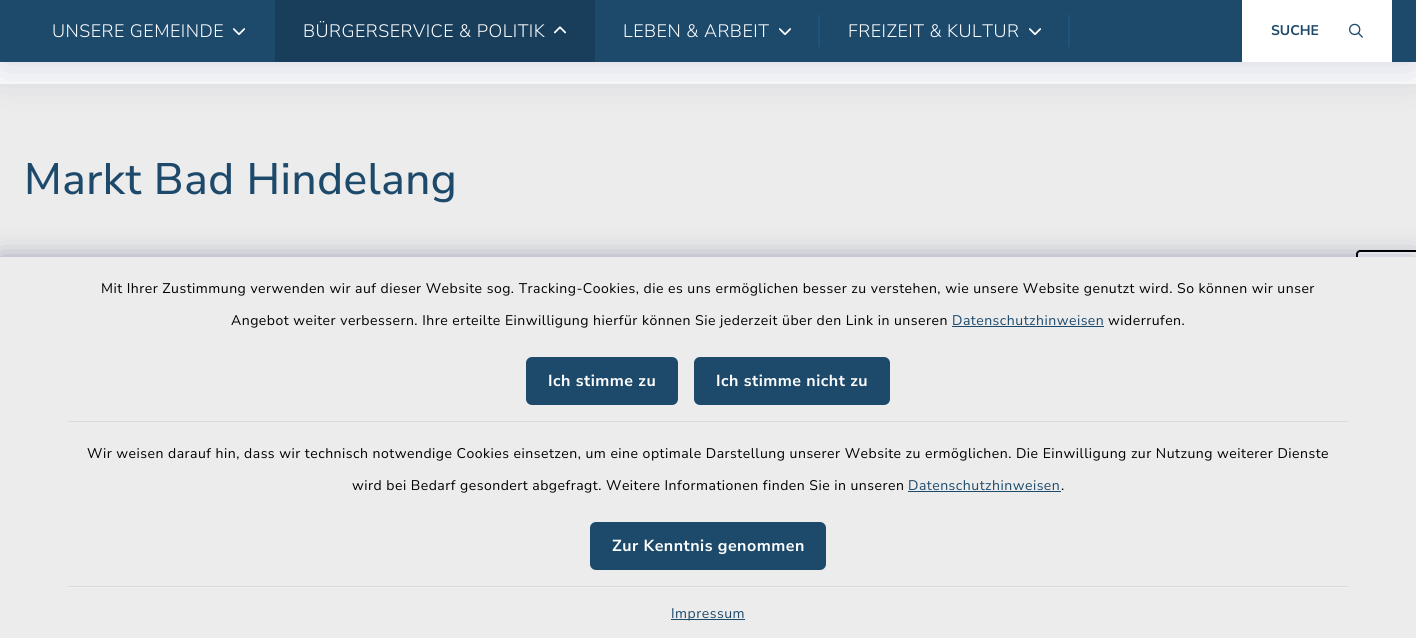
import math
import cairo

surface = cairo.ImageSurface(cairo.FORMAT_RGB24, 1416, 638)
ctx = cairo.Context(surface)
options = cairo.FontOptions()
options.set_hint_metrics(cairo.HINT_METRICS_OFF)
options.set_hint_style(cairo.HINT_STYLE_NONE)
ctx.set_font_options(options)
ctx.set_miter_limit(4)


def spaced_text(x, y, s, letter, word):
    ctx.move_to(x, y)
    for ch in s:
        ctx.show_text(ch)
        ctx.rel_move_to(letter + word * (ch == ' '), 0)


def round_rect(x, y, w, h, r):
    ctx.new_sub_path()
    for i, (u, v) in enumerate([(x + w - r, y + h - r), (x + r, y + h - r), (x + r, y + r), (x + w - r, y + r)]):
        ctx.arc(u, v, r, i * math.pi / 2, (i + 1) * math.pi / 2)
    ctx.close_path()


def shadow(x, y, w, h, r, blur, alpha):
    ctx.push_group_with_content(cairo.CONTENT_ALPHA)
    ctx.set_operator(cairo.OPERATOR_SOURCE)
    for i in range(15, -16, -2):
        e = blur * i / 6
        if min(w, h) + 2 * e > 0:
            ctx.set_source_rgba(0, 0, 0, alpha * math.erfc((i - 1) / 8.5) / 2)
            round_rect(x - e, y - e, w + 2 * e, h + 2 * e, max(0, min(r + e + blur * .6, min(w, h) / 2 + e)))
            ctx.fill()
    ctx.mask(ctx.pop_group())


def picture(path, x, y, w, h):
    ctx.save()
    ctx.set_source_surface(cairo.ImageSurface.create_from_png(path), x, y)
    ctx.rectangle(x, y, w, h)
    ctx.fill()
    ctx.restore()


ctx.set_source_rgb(1, 1, 1)
ctx.paint()
ctx.set_source_rgb(0.925, 0.925, 0.925)
ctx.rectangle(0, 84, 1416, 173)
ctx.fill()
ctx.set_source_rgb(0.016, 0.059, 0.286)
shadow(0, 8, 1416, 62, 0, 22, 0.16)
ctx.set_source_rgb(0.114, 0.286, 0.42)
ctx.rectangle(0, 0, 1416, 62)
ctx.fill()
ctx.select_font_face("Nunito Sans Light")
ctx.set_font_size(18)
ctx.set_source_rgb(1, 1, 1)
spaced_text(52, 37, "UNSERE GEMEINDE", 0.5, 0)
picture("img1.png", 233, 28, 12, 7)
ctx.set_source_rgb(0.098, 0.243, 0.357)
ctx.rectangle(275, 0, 320, 62)
ctx.fill()
ctx.set_source_rgb(1, 1, 1)
spaced_text(303, 37, "BÜRGERSERVICE & POLITIK", 0.5, 0)
picture("img2.png", 553, 26, 14, 8)
spaced_text(623, 37, "LEBEN & ARBEIT", 0.5, 0)
picture("img1.png", 779, 28, 12, 7)
ctx.set_source_rgb(0.129, 0.329, 0.482)
ctx.rectangle(818, 15, 2, 32)
ctx.fill()
ctx.set_source_rgb(1, 1, 1)
spaced_text(848, 37, "FREIZEIT & KULTUR", 0.5, 0)
picture("img1.png", 1029, 28, 12, 7)
ctx.set_source_rgb(0.129, 0.329, 0.482)
ctx.rectangle(1068, 15, 2, 32)
ctx.fill()
ctx.set_source_rgb(1, 1, 1)
ctx.rectangle(1242, 0, 150, 62)
ctx.fill()
ctx.select_font_face("Nunito Sans", cairo.FONT_SLANT_NORMAL, cairo.FONT_WEIGHT_BOLD)
ctx.set_font_size(14)
ctx.set_source_rgb(0.114, 0.286, 0.42)
ctx.move_to(1271, 35)
ctx.show_text("SUCHE")
picture("img3.png", 1349, 23, 14, 15)
ctx.select_font_face("Nunito Sans Medium")
ctx.set_font_size(44)
spaced_text(24, 194, "Markt Bad Hindelang", 0.5, 0)
ctx.set_source_rgb(1, 1, 1)
ctx.new_path()
ctx.move_to(1360, 250)
ctx.line_to(1416, 250)
ctx.line_to(1416, 310)
ctx.line_to(1360, 310)
ctx.curve_to(1358, 310, 1356, 308, 1356, 306)
ctx.line_to(1356, 254)
ctx.curve_to(1356, 252, 1358, 250, 1360, 250)
ctx.close_path()
ctx.fill()
ctx.set_source_rgb(0, 0, 0)
ctx.set_fill_rule(cairo.FILL_RULE_EVEN_ODD)
ctx.new_path()
ctx.move_to(1360, 250)
ctx.line_to(1416, 250)
ctx.line_to(1416, 310)
ctx.line_to(1360, 310)
ctx.curve_to(1358, 310, 1356, 308, 1356, 306)
ctx.line_to(1356, 254)
ctx.curve_to(1356, 252, 1358, 250, 1360, 250)
ctx.close_path()
ctx.move_to(1360, 252)
ctx.line_to(1416, 252)
ctx.line_to(1416, 308)
ctx.line_to(1360, 308)
ctx.curve_to(1359, 308, 1358, 307, 1358, 306)
ctx.line_to(1358, 254)
ctx.curve_to(1358, 253, 1359, 252, 1360, 252)
ctx.close_path()
ctx.fill()
ctx.set_source_rgb(0.016, 0.059, 0.286)
shadow(0, 261, 1416, 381, 0, 14, 0.44)
ctx.set_source_rgb(0.925, 0.925, 0.925)
ctx.rectangle(0, 257, 1416, 381)
ctx.fill()
ctx.set_source_rgb(0.851, 0.851, 0.851)
ctx.rectangle(68, 421, 1280, 1)
ctx.fill()
ctx.select_font_face("Nunito Sans")
ctx.set_font_size(14)
ctx.set_source_rgb(0, 0, 0)
spaced_text(101, 293, "Mit Ihrer Zustimmung verwenden wir auf dieser Website sog. Tracking-Cookies, die es uns ermöglichen besser zu verstehen, wie unsere Website genutzt wird. So können wir unser", 0.5, 0)
spaced_text(231, 325, "Angebot weiter verbessern. Ihre erteilte Einwilligung hierfür können Sie jederzeit über den Link in unseren", 0.5, 0)
ctx.set_source_rgb(0.114, 0.286, 0.42)
spaced_text(952, 325, "Datenschutzhinweisen", 0.5, 0)
ctx.rectangle(952, 326, 152, 1)
ctx.fill()
ctx.set_source_rgb(0, 0, 0)
spaced_text(1108, 325, "widerrufen.", 0.5, 0)
ctx.set_source_rgb(0.114, 0.286, 0.42)
round_rect(527, 358, 150, 46, 5)
ctx.fill_preserve()
ctx.stroke()
ctx.select_font_face("Nunito Sans", cairo.FONT_SLANT_NORMAL, cairo.FONT_WEIGHT_BOLD)
ctx.set_font_size(16)
ctx.set_source_rgb(1, 1, 1)
spaced_text(548, 386, "Ich stimme zu", 0.5, 0)
ctx.set_source_rgb(0.114, 0.286, 0.42)
round_rect(695, 358, 194, 46, 5)
ctx.fill_preserve()
ctx.stroke()
ctx.set_source_rgb(1, 1, 1)
spaced_text(716, 386, "Ich stimme nicht zu", 0.5, 0)
ctx.set_source_rgb(0.851, 0.851, 0.851)
ctx.rectangle(68, 586, 1280, 1)
ctx.fill()
ctx.select_font_face("Nunito Sans")
ctx.set_font_size(14)
ctx.set_source_rgb(0, 0, 0)
spaced_text(87, 458, "Wir weisen darauf hin, dass wir technisch notwendige Cookies einsetzen, um eine optimale Darstellung unserer Website zu ermöglichen. Die Einwilligung zur Nutzung weiterer Dienste", 0.5, 0)
spaced_text(352, 490, "wird bei Bedarf gesondert abgefragt. Weitere Informationen finden Sie in unseren", 0.5, 0)
ctx.set_source_rgb(0.114, 0.286, 0.42)
spaced_text(908, 490, "Datenschutzhinweisen", 0.5, 0)
ctx.rectangle(908, 491, 153, 1)
ctx.fill()
ctx.set_source_rgb(0, 0, 0)
spaced_text(1061, 490, ".", 0.5, 0)
ctx.set_source_rgb(0.114, 0.286, 0.42)
round_rect(591, 523, 234, 46, 5)
ctx.fill_preserve()
ctx.stroke()
ctx.select_font_face("Nunito Sans", cairo.FONT_SLANT_NORMAL, cairo.FONT_WEIGHT_BOLD)
ctx.set_font_size(16)
ctx.set_source_rgb(1, 1, 1)
spaced_text(612, 551, "Zur Kenntnis genommen", 0.5, 0)
ctx.set_source_rgb(0.941, 0.941, 0.941)
ctx.rectangle(68, 587, 1280, 1)
ctx.fill()
ctx.set_source_rgb(0.114, 0.286, 0.42)
ctx.rectangle(671, 619, 74, 1)
ctx.fill()
ctx.select_font_face("Nunito Sans")
ctx.set_font_size(14)
spaced_text(671, 618, "Impressum", 0.5, 0)
surface.write_to_png("page.png")
